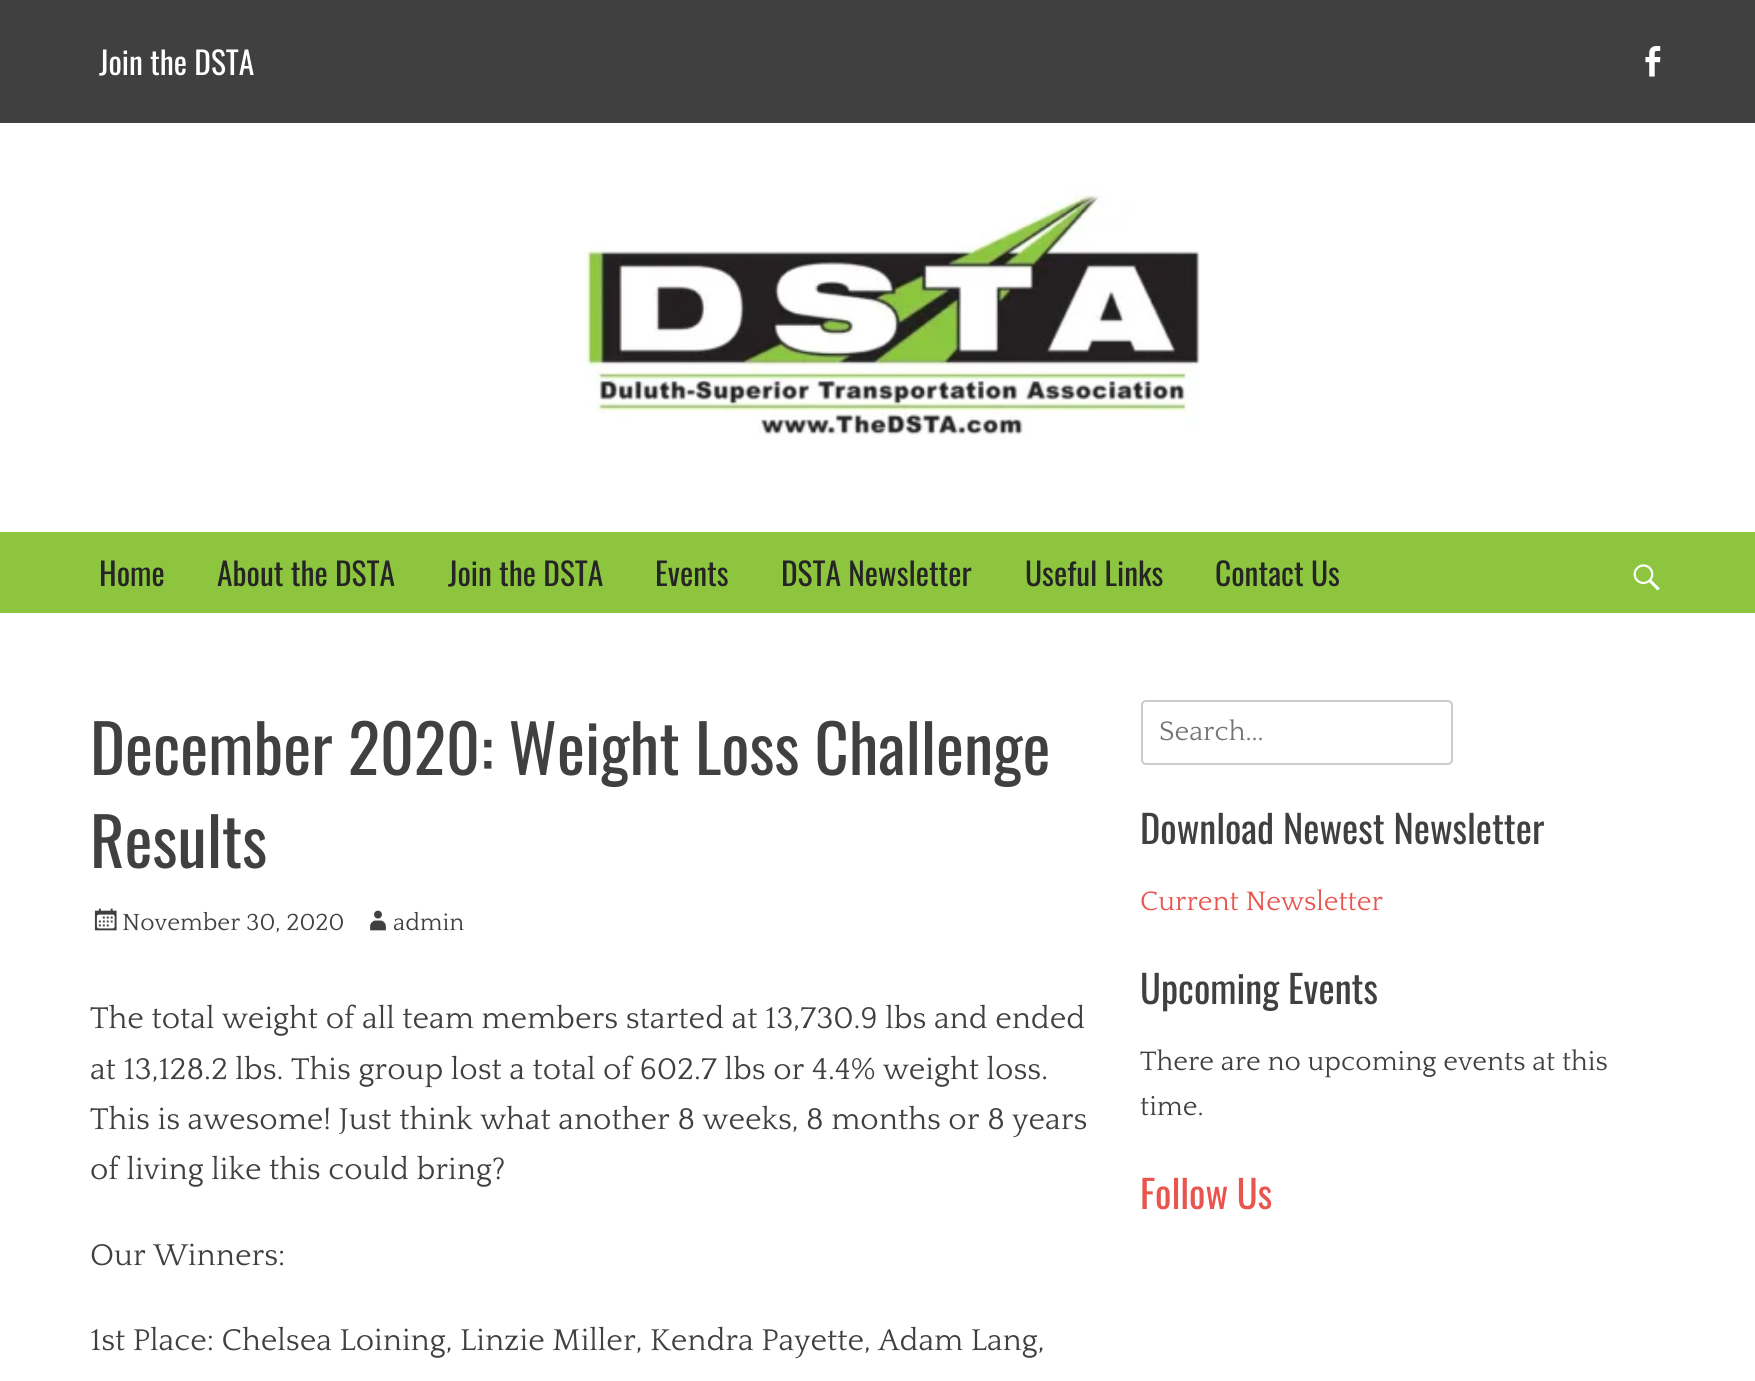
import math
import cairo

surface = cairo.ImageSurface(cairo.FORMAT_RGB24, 1755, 1381)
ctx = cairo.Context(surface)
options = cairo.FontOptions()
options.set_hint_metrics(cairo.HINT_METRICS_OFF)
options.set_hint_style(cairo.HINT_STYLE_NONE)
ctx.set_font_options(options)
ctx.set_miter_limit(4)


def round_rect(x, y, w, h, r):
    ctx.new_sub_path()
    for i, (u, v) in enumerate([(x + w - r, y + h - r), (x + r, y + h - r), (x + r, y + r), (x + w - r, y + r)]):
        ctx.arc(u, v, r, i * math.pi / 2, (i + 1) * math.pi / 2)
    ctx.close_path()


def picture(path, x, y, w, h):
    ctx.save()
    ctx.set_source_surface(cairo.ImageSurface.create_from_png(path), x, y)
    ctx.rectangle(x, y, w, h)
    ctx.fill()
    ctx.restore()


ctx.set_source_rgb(1, 1, 1)
ctx.paint()
ctx.set_source_rgb(0.251, 0.251, 0.251)
ctx.rectangle(0, 0, 1755, 123)
ctx.fill()
ctx.select_font_face("Oswald")
ctx.set_font_size(31.5)
ctx.set_source_rgb(1, 1, 1)
ctx.move_to(99, 75)
ctx.show_text("Join the DSTA")
picture("img1.png", 1645, 45, 16, 32)
picture("img2.png", 583, 189, 617, 246)
ctx.set_source_rgb(0.553, 0.776, 0.243)
ctx.rectangle(0, 532, 1755, 81)
ctx.fill()
ctx.set_source_rgb(0.145, 0.145, 0.145)
ctx.move_to(99, 586)
ctx.show_text("Home")
ctx.move_to(217, 586)
ctx.show_text("About the DSTA")
ctx.move_to(448, 586)
ctx.show_text("Join the DSTA")
ctx.move_to(655, 586)
ctx.show_text("Events")
ctx.move_to(781, 586)
ctx.show_text("DSTA Newsletter")
ctx.move_to(1025, 586)
ctx.show_text("Useful Links")
ctx.move_to(1215, 586)
ctx.show_text("Contact Us")
picture("img3.png", 1633, 564, 27, 27)
ctx.set_font_size(66.5)
ctx.set_source_rgb(0.251, 0.251, 0.251)
ctx.move_to(90, 775)
ctx.show_text("December 2020: Weight Loss Challenge")
ctx.move_to(90, 868)
ctx.show_text("Results")
picture("img4.png", 94, 908, 23, 23)
ctx.select_font_face("Quattrocento")
ctx.set_font_size(24.5)
ctx.move_to(122, 930)
ctx.show_text("November 30, 2020")
picture("img5.png", 370, 910, 16, 21)
ctx.move_to(393, 930)
ctx.show_text("admin")
ctx.set_font_size(31.5)
ctx.move_to(90, 1028)
ctx.show_text("The total weight of all team members started at 13,730.9 lbs and ended")
ctx.move_to(90, 1079)
ctx.show_text("at 13,128.2 lbs. This group lost a total of 602.7 lbs or 4.4% weight loss.")
ctx.move_to(90, 1129)
ctx.show_text("This is awesome! Just think what another 8 weeks, 8 months or 8 years")
ctx.move_to(90, 1179)
ctx.show_text("of living like this could bring?")
ctx.move_to(90, 1265)
ctx.show_text("Our Winners:")
ctx.move_to(90, 1350)
ctx.show_text("1st Place: Chelsea Loining, Linzie Miller, Kendra Payette, Adam Lang,")
round_rect(1142, 701, 310, 63, 4)
ctx.set_source_rgb(0.8, 0.8, 0.8)
ctx.stroke()
ctx.set_font_size(28)
ctx.set_source_rgb(0.459, 0.459, 0.459)
ctx.move_to(1159, 740)
ctx.show_text("Search...")
ctx.select_font_face("Oswald")
ctx.set_font_size(38.5)
ctx.set_source_rgb(0.251, 0.251, 0.251)
ctx.move_to(1140, 844)
ctx.show_text("Download Newest Newsletter")
ctx.select_font_face("Quattrocento")
ctx.set_font_size(28)
ctx.set_source_rgb(0.91, 0.333, 0.306)
ctx.move_to(1140, 910)
ctx.show_text("Current Newsletter")
ctx.select_font_face("Oswald")
ctx.set_font_size(38.5)
ctx.set_source_rgb(0.251, 0.251, 0.251)
ctx.move_to(1140, 1004)
ctx.show_text("Upcoming Events")
ctx.select_font_face("Quattrocento")
ctx.set_font_size(28)
ctx.move_to(1140, 1070)
ctx.show_text("There are no upcoming events at this")
ctx.move_to(1140, 1115)
ctx.show_text("time.")
ctx.select_font_face("Oswald")
ctx.set_font_size(38.5)
ctx.set_source_rgb(0.91, 0.333, 0.306)
ctx.move_to(1140, 1209)
ctx.show_text("Follow Us")
surface.write_to_png("page.png")
